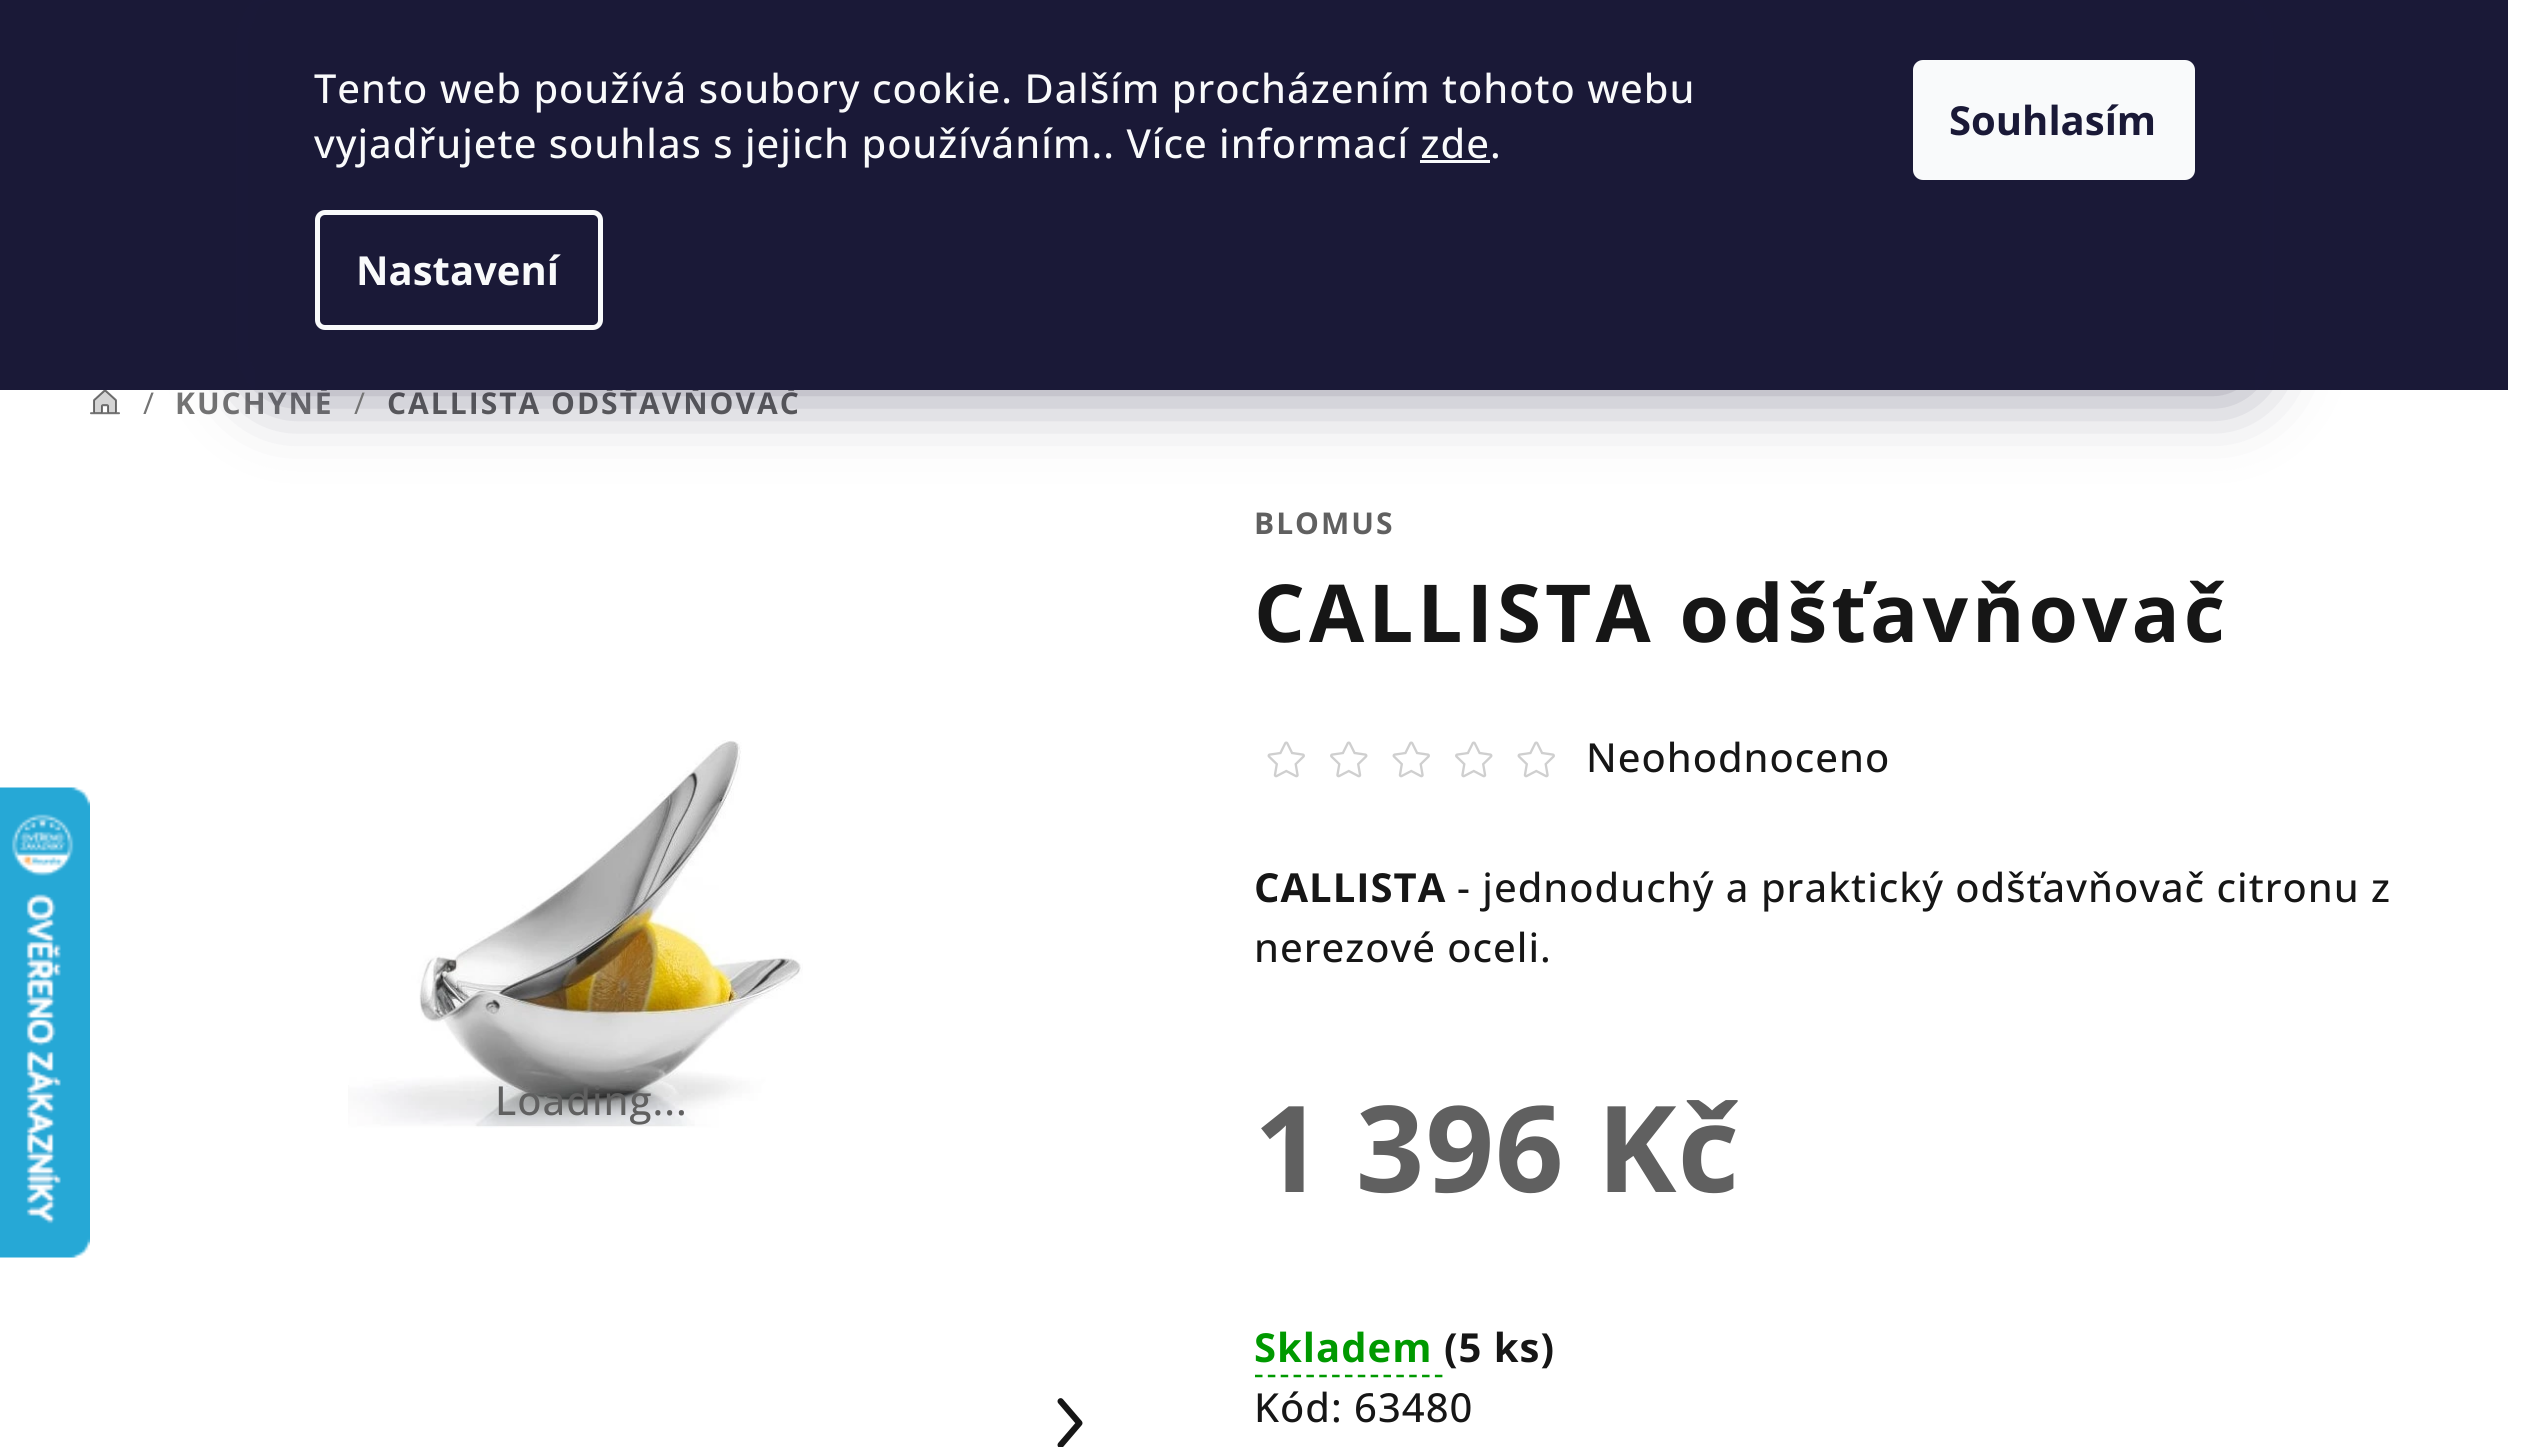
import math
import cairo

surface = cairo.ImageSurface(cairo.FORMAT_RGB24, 2544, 1447)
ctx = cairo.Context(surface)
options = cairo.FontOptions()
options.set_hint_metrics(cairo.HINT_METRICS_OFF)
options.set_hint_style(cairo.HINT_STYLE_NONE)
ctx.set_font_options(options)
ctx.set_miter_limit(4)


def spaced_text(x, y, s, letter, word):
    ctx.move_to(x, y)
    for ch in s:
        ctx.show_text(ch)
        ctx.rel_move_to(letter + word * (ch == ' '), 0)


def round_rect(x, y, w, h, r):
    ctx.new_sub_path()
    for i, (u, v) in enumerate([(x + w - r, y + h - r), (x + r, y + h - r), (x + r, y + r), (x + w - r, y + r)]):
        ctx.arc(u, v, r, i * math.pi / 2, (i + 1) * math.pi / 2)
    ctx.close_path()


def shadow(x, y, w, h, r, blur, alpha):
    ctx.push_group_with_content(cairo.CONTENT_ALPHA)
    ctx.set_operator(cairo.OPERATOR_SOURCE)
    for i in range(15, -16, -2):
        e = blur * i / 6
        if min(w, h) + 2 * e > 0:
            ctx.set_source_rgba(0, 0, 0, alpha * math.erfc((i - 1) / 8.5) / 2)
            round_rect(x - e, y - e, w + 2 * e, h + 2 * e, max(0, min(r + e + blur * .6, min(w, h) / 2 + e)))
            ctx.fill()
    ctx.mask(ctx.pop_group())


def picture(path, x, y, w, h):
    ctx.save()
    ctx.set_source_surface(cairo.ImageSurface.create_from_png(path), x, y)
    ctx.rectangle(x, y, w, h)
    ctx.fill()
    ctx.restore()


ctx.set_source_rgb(1, 1, 1)
ctx.paint()
ctx.select_font_face("Open Sans", cairo.FONT_SLANT_NORMAL, cairo.FONT_WEIGHT_BOLD)
ctx.set_font_size(30)
ctx.set_source_rgb(0.455, 0.455, 0.455)
spaced_text(175, 414, "KUCHYNĚ", 2, 0)
ctx.set_source_rgb(0.376, 0.376, 0.376)
spaced_text(387, 414, "CALLISTA ODŠŤAVŇOVAČ", 2, 0)
ctx.set_source_rgb(0.102, 0.098, 0.216)
ctx.rectangle(0, 0, 2508, 390)
ctx.fill()
ctx.save()
ctx.set_fill_rule(cairo.FILL_RULE_EVEN_ODD)
ctx.new_path()
ctx.move_to(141, 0)
ctx.line_to(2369, 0)
ctx.line_to(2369, 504)
ctx.line_to(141, 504)
ctx.close_path()
ctx.move_to(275, 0)
ctx.line_to(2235, 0)
ctx.curve_to(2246, 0, 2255, 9, 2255, 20)
ctx.line_to(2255, 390)
ctx.line_to(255, 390)
ctx.line_to(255, 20)
ctx.curve_to(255, 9, 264, 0, 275, 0)
ctx.close_path()
ctx.clip()
ctx.set_source_rgb(0.106, 0.098, 0.224)
shadow(255, 0, 2000, 390, 20, 37.5, 0.5)
ctx.restore()
ctx.select_font_face("Open Sans Medium")
ctx.set_font_size(40)
ctx.set_source_rgb(0.973, 0.98, 0.984)
spaced_text(314, 103, "Tento web používá soubory cookie. Dalším procházením tohoto webu", 1, 0)
spaced_text(314, 158, "vyjadřujete souhlas s jejich používáním.. Více informací zde.", 1, 0)
ctx.rectangle(1420, 160, 70, 3)
ctx.fill()
round_rect(317.5, 212.5, 283, 115, 7.5)
ctx.set_line_width(5)
ctx.stroke()
ctx.select_font_face("Open Sans", cairo.FONT_SLANT_NORMAL, cairo.FONT_WEIGHT_BOLD)
ctx.move_to(356, 285)
ctx.show_text("Nastavení")
round_rect(1913, 60, 282, 120, 10)
ctx.fill()
ctx.set_source_rgb(0.102, 0.098, 0.216)
ctx.move_to(1949, 135)
ctx.show_text("Souhlasím")
picture("img1.png", 0, 787, 90, 471)
picture("img2.png", 90, 390, 30, 25)
picture("img3.png", 94, 390, 22, 23)
ctx.select_font_face("Open Sans")
ctx.set_font_size(30)
ctx.set_source_rgb(0.455, 0.455, 0.455)
spaced_text(143, 414, "/", 2, 0)
spaced_text(354, 414, "/", 2, 0)
picture("img4.png", 348, 740, 455, 388)
ctx.select_font_face("Open Sans Medium")
ctx.set_font_size(40)
ctx.set_source_rgb(0.376, 0.376, 0.376)
spaced_text(495, 1115, "Loading...", 1, 0)
picture("img5.png", 1057, 1398, 26, 49)
ctx.select_font_face("Open Sans", cairo.FONT_SLANT_NORMAL, cairo.FONT_WEIGHT_BOLD)
ctx.set_font_size(30)
spaced_text(1254, 534, "BLOMUS", 2, 0)
ctx.set_font_size(80)
ctx.set_source_rgb(0.086, 0.086, 0.086)
spaced_text(1254, 642, "CALLISTA odšťavňovač", 4, 0)
picture("img6.png", 1267, 741, 38, 37)
picture("img7.png", 1330, 741, 38, 37)
picture("img6.png", 1392, 741, 38, 37)
picture("img7.png", 1455, 741, 38, 37)
picture("img6.png", 1517, 741, 38, 37)
ctx.select_font_face("Open Sans Medium")
ctx.set_font_size(40)
spaced_text(1586, 772, "Neohodnoceno", 1, 0)
ctx.select_font_face("Open Sans", cairo.FONT_SLANT_NORMAL, cairo.FONT_WEIGHT_BOLD)
spaced_text(1254, 902, "CALLISTA", 1, 0)
ctx.select_font_face("Open Sans Medium")
spaced_text(1457, 902, "- jednoduchý a praktický odšťavňovač citronu z", 1, 0)
spaced_text(1254, 962, "nerezové oceli.", 1, 0)
ctx.select_font_face("Open Sans", cairo.FONT_SLANT_NORMAL, cairo.FONT_WEIGHT_BOLD)
ctx.set_font_size(120)
ctx.set_source_rgb(0.376, 0.376, 0.376)
spaced_text(1254, 1192, "1 396 Kč", 1, 0)
ctx.set_font_size(40)
ctx.set_source_rgb(0, 0.6, 0)
spaced_text(1254, 1362, "Skladem", 1, 0)
ctx.new_path()
ctx.move_to(1255, 1376)
ctx.line_to(1442.5, 1376)
ctx.set_line_width(2.5)
ctx.set_dash([7.5, 5.35])
ctx.stroke()
ctx.set_source_rgb(0.086, 0.086, 0.086)
spaced_text(1444, 1362, "(5 ks)", 1, 0)
ctx.select_font_face("Open Sans Medium")
spaced_text(1254, 1422, "Kód: 63480", 1, 0)
surface.write_to_png("page.png")
